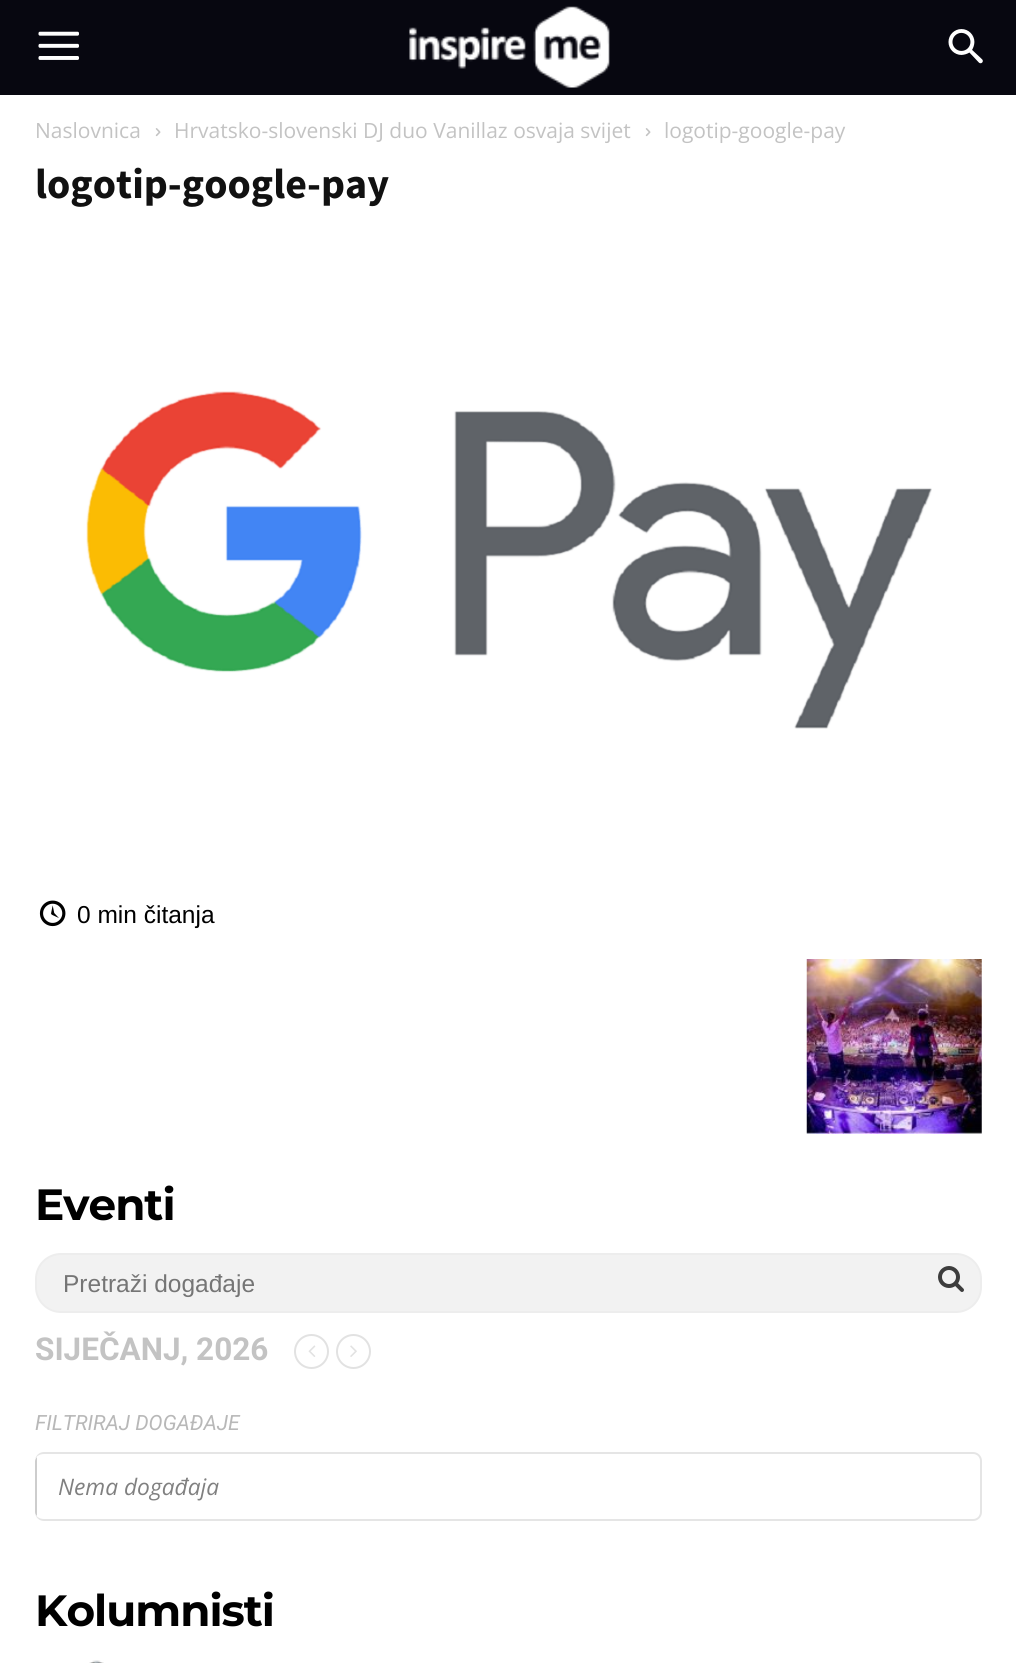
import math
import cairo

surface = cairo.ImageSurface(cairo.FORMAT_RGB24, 1016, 1663)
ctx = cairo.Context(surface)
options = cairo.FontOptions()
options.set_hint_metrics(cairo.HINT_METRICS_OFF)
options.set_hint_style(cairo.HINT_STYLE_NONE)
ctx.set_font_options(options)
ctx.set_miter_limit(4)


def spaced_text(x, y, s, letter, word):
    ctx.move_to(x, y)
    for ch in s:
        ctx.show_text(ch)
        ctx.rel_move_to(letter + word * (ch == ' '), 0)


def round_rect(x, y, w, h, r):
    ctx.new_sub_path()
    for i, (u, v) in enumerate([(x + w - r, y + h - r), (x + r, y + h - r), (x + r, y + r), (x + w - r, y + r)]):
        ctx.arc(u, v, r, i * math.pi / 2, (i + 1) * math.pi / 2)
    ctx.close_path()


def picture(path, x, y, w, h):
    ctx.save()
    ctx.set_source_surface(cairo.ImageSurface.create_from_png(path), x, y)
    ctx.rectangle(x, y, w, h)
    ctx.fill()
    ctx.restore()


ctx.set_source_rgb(1, 1, 1)
ctx.paint()
ctx.set_source_rgb(0.031, 0.031, 0.063)
ctx.rectangle(0, 0, 1016, 95)
ctx.fill()
picture("img1.png", 38, 31, 41, 29)
picture("img2.png", 409, 6, 201, 82)
picture("img3.png", 948, 29, 35, 35)
ctx.select_font_face("Open Sans")
ctx.set_font_size(21)
ctx.set_source_rgb(0.765, 0.765, 0.765)
ctx.move_to(35, 138)
ctx.show_text("Naslovnica")
picture("img4.png", 155, 128, 6, 9)
ctx.move_to(174, 138)
ctx.show_text("Hrvatsko-slovenski DJ duo Vanillaz osvaja svijet")
picture("img4.png", 645, 128, 6, 9)
ctx.move_to(664, 138)
ctx.show_text("logotip-google-pay")
ctx.select_font_face("Source Sans Pro", cairo.FONT_SLANT_NORMAL, cairo.FONT_WEIGHT_BOLD)
ctx.set_font_size(42)
ctx.set_source_rgb(0.067, 0.067, 0.067)
ctx.move_to(35, 198)
ctx.show_text("logotip-google-pay")
picture("img5.png", 86, 391, 846, 338)
picture("img6.png", 39, 900, 27, 27)
ctx.select_font_face("Liberation Sans")
ctx.set_font_size(24.5)
ctx.set_source_rgb(0, 0, 0)
ctx.move_to(77, 923)
ctx.show_text("0 min čitanja")
picture("img7.png", 806, 959, 176, 175)
ctx.select_font_face("Montserrat", cairo.FONT_SLANT_NORMAL, cairo.FONT_WEIGHT_BOLD)
ctx.set_font_size(43.75)
spaced_text(35, 1220, "Eventi", -1, 0)
ctx.set_source_rgb(0.949, 0.949, 0.949)
round_rect(36, 1254, 945, 58, 25)
ctx.fill_preserve()
ctx.set_source_rgb(0.929, 0.929, 0.929)
ctx.stroke()
ctx.select_font_face("Liberation Sans")
ctx.set_font_size(24.5)
ctx.set_source_rgb(0.459, 0.459, 0.459)
ctx.move_to(63, 1292)
ctx.show_text("Pretraži događaje")
picture("img8.png", 938, 1266, 26, 26)
ctx.select_font_face("Roboto", cairo.FONT_SLANT_NORMAL, cairo.FONT_WEIGHT_BOLD)
ctx.set_font_size(31.5)
ctx.set_source_rgb(0.765, 0.765, 0.765)
ctx.move_to(35, 1360)
ctx.show_text("SIJEČANJ, 2026")
ctx.new_path()
ctx.arc(311.5, 1351.5, 16.5, 0, 2 * math.pi)
ctx.set_source_rgb(0.886, 0.886, 0.886)
ctx.stroke()
picture("img9.png", 308, 1345, 8, 12)
ctx.arc(353.5, 1351.5, 16.5, 0, 2 * math.pi)
ctx.stroke()
picture("img10.png", 350, 1345, 7, 12)
ctx.select_font_face("Roboto", cairo.FONT_SLANT_ITALIC)
ctx.set_font_size(21)
ctx.set_source_rgb(0.722, 0.722, 0.722)
ctx.move_to(35, 1430)
ctx.show_text("FILTRIRAJ DOGAĐAJE")
ctx.set_source_rgb(0.898, 0.898, 0.898)
ctx.set_fill_rule(cairo.FILL_RULE_EVEN_ODD)
ctx.new_path()
ctx.move_to(44, 1452)
ctx.line_to(973, 1452)
ctx.curve_to(978, 1452, 982, 1456, 982, 1461)
ctx.line_to(982, 1512)
ctx.curve_to(982, 1517, 978, 1521, 973, 1521)
ctx.line_to(44, 1521)
ctx.curve_to(39, 1521, 35, 1517, 35, 1512)
ctx.line_to(35, 1461)
ctx.curve_to(35, 1456, 39, 1452, 44, 1452)
ctx.close_path()
ctx.move_to(44, 1454)
ctx.line_to(973, 1454)
ctx.curve_to(977, 1454, 980, 1457, 980, 1461)
ctx.line_to(980, 1512)
ctx.curve_to(980, 1516, 977, 1519, 973, 1519)
ctx.line_to(44, 1519)
ctx.curve_to(39, 1519, 35, 1516, 35, 1512)
ctx.line_to(35, 1461)
ctx.curve_to(35, 1457, 39, 1454, 44, 1454)
ctx.close_path()
ctx.fill()
ctx.set_source_rgb(0.804, 0.804, 0.804)
ctx.set_fill_rule(cairo.FILL_RULE_WINDING)
ctx.new_path()
ctx.move_to(35, 1461)
ctx.line_to(35, 1512)
ctx.curve_to(35, 1514, 36, 1515, 37, 1516)
ctx.line_to(37, 1457)
ctx.curve_to(36, 1458, 35, 1460, 35, 1461)
ctx.close_path()
ctx.fill()
ctx.select_font_face("Open Sans", cairo.FONT_SLANT_ITALIC)
ctx.set_font_size(22.75)
ctx.set_source_rgb(0.502, 0.502, 0.502)
ctx.move_to(58, 1495)
ctx.show_text("Nema događaja")
ctx.select_font_face("Montserrat", cairo.FONT_SLANT_NORMAL, cairo.FONT_WEIGHT_BOLD)
ctx.set_font_size(43.75)
ctx.set_source_rgb(0, 0, 0)
spaced_text(35, 1626, "Kolumnisti", -1, 0)
picture("img11.png", 89, 1660, 15, 3)
surface.write_to_png("page.png")
